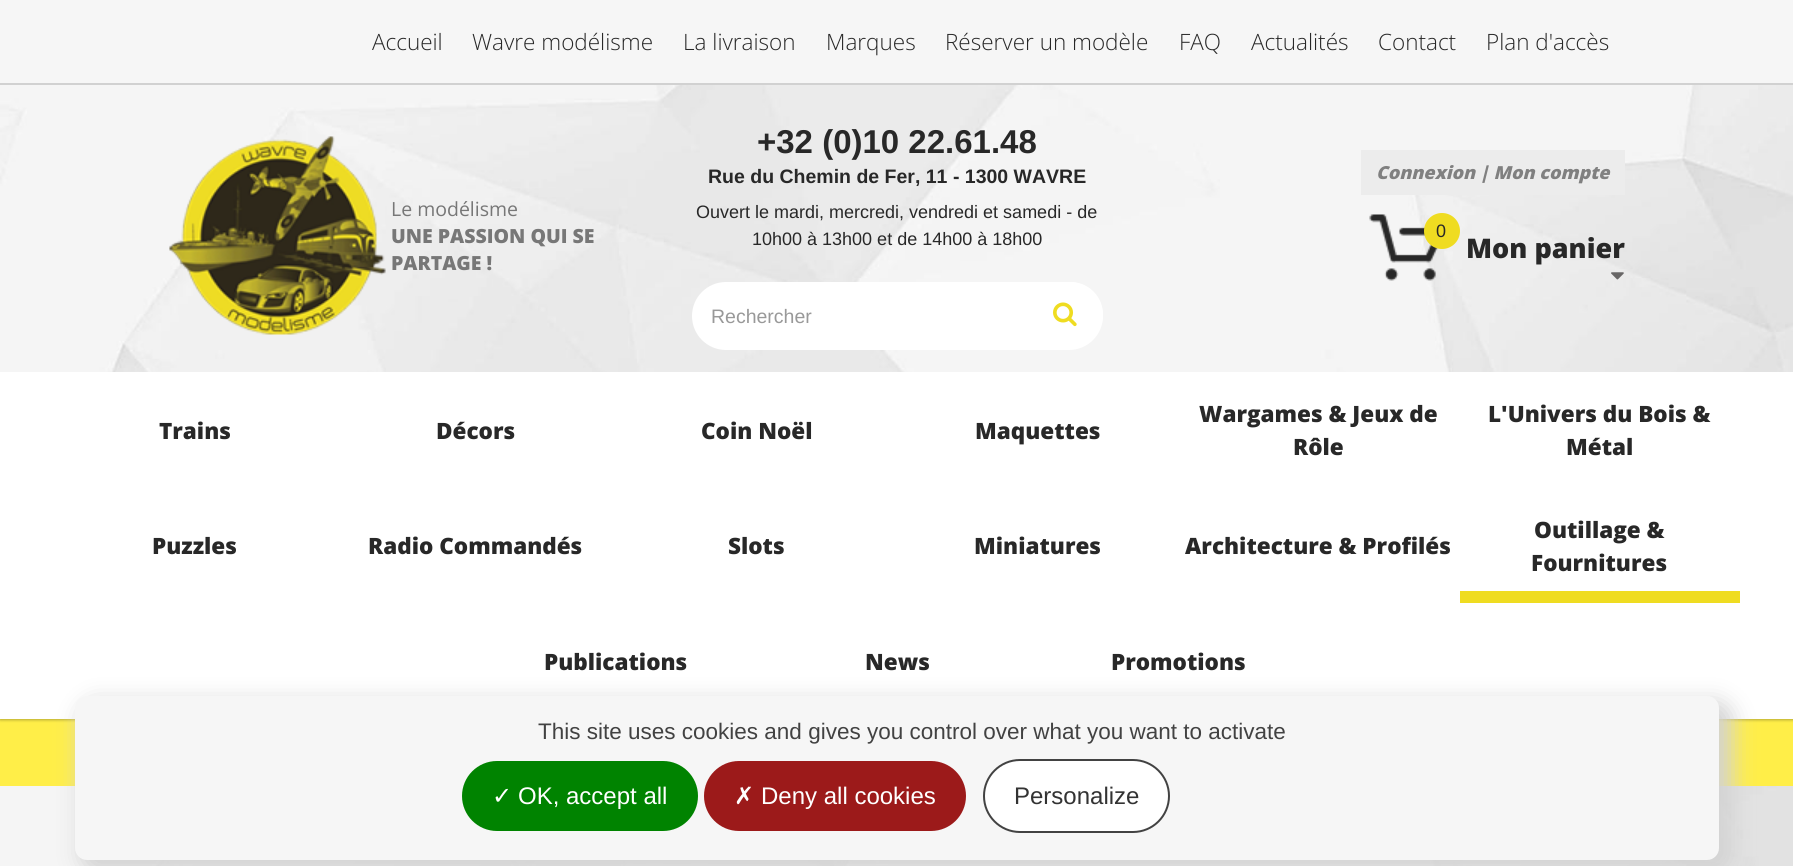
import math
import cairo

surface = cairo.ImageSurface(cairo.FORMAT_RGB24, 1793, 866)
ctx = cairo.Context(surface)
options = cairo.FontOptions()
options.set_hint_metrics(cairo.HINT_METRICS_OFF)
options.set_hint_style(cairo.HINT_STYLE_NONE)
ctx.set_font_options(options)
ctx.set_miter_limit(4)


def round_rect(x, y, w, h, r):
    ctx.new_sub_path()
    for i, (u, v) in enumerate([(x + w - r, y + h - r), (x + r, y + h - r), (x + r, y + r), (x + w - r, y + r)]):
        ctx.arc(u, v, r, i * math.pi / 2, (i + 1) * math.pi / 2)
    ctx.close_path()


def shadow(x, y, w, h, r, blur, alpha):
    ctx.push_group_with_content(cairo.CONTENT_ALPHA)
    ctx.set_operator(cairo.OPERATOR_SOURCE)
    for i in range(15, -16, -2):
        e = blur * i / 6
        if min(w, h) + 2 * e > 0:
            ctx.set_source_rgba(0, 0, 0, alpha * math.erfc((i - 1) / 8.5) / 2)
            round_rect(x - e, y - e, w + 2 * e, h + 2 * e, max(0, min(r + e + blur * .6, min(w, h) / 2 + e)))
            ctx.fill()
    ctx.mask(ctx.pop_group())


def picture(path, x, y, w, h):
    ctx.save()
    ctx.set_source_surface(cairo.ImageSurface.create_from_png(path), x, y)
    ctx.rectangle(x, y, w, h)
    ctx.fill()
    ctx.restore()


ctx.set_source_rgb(1, 1, 1)
ctx.paint()
ctx.set_source_rgb(1, 0.933, 0.282)
ctx.rectangle(0, 719, 1793, 67)
ctx.fill()
ctx.set_source_rgb(0, 0, 0)
shadow(0, 371, 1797, 349, 0, 1.5, 0.3)
picture("img1.png", 0, 85, 1793, 287)
ctx.set_source_rgb(0.961, 0.961, 0.961)
ctx.rectangle(0, 0, 1793, 83)
ctx.fill()
ctx.set_source_rgb(0.82, 0.82, 0.82)
ctx.rectangle(0, 83, 1793, 2)
ctx.fill()
ctx.select_font_face("Open Sans Light")
ctx.set_font_size(22.5)
ctx.set_source_rgb(0.157, 0.157, 0.157)
ctx.move_to(372, 50)
ctx.show_text("Accueil")
ctx.move_to(472, 50)
ctx.show_text("Wavre modélisme")
ctx.move_to(683, 50)
ctx.show_text("La livraison")
ctx.move_to(826, 50)
ctx.show_text("Marques")
ctx.move_to(945, 50)
ctx.show_text("Réserver un modèle")
ctx.move_to(1179, 50)
ctx.show_text("FAQ")
ctx.move_to(1251, 50)
ctx.show_text("Actualités")
ctx.move_to(1378, 50)
ctx.show_text("Contact")
ctx.move_to(1486, 50)
ctx.show_text("Plan d'accès")
ctx.select_font_face("Liberation Sans", cairo.FONT_SLANT_NORMAL, cairo.FONT_WEIGHT_BOLD)
ctx.set_font_size(33)
ctx.move_to(757, 153)
ctx.show_text("+32 (0)10 22.61.48")
ctx.set_font_size(19.5)
ctx.move_to(708, 183)
ctx.show_text("Rue du Chemin de Fer, 11 - 1300 WAVRE")
ctx.select_font_face("Liberation Sans")
ctx.set_font_size(18)
ctx.move_to(696, 218)
ctx.show_text("Ouvert le mardi, mercredi, vendredi et samedi - de")
ctx.move_to(752, 245)
ctx.show_text("10h00 à 13h00 et de 14h00 à 18h00")
ctx.set_source_rgb(1, 1, 1)
round_rect(692, 282, 411, 68, 34)
ctx.fill()
ctx.set_font_size(19.5)
ctx.set_source_rgb(0.6, 0.6, 0.6)
ctx.move_to(711, 323)
ctx.show_text("Rechercher")
ctx.set_source_rgb(1, 1, 1)
ctx.new_path()
ctx.move_to(1028, 282)
ctx.line_to(1070.5, 282)
ctx.curve_to(1088.5, 282, 1103, 296.5, 1103, 314.5)
ctx.curve_to(1103, 332.5, 1088.5, 347, 1070.5, 347)
ctx.line_to(1028, 347)
ctx.close_path()
ctx.fill()
picture("img2.png", 1053, 302, 24, 25)
ctx.set_source_rgb(0.922, 0.922, 0.922)
ctx.rectangle(1361, 150, 264, 45)
ctx.fill()
ctx.select_font_face("Open Sans ExtraBold", cairo.FONT_SLANT_ITALIC)
ctx.set_font_size(18)
ctx.set_source_rgb(0.502, 0.502, 0.502)
ctx.move_to(1376, 179)
ctx.show_text("Connexion | Mon compte")
picture("img3.png", 169, 136, 217, 199)
ctx.select_font_face("Open Sans")
ctx.set_font_size(19.5)
ctx.set_source_rgb(0.467, 0.467, 0.467)
ctx.move_to(391, 216)
ctx.show_text("Le modélisme")
ctx.select_font_face("Open Sans ExtraBold")
ctx.move_to(391, 243)
ctx.show_text("UNE PASSION QUI SE")
ctx.move_to(391, 270)
ctx.show_text("PARTAGE !")
picture("img4.png", 1369, 214, 69, 67)
ctx.set_source_rgb(0.937, 0.863, 0.129)
ctx.arc(1442, 231, 18, 0, 2 * math.pi)
ctx.fill()
ctx.select_font_face("Liberation Sans")
ctx.set_font_size(18)
ctx.set_source_rgb(0.157, 0.157, 0.157)
ctx.move_to(1436, 237)
ctx.show_text("0")
ctx.select_font_face("Open Sans ExtraBold")
ctx.set_font_size(27)
ctx.move_to(1466, 258)
ctx.show_text("Mon panier")
picture("img5.png", 1611, 272, 13, 8)
ctx.set_source_rgb(1, 1, 1)
ctx.rectangle(0, 372, 1793, 347)
ctx.fill()
ctx.set_font_size(22.5)
ctx.set_source_rgb(0.157, 0.157, 0.157)
ctx.move_to(159, 439)
ctx.show_text("Trains")
ctx.move_to(436, 439)
ctx.show_text("Décors")
ctx.move_to(701, 439)
ctx.show_text("Coin Noël")
ctx.move_to(975, 439)
ctx.show_text("Maquettes")
ctx.move_to(1199, 422)
ctx.show_text("Wargames & Jeux de")
ctx.move_to(1293, 455)
ctx.show_text("Rôle")
ctx.move_to(1488, 422)
ctx.show_text("L'Univers du Bois &")
ctx.move_to(1566, 455)
ctx.show_text("Métal")
ctx.move_to(152, 554)
ctx.show_text("Puzzles")
ctx.move_to(368, 554)
ctx.show_text("Radio Commandés")
ctx.move_to(728, 554)
ctx.show_text("Slots")
ctx.move_to(974, 554)
ctx.show_text("Miniatures")
ctx.move_to(1185, 554)
ctx.show_text("Architecture & Profilés")
ctx.move_to(1534, 538)
ctx.show_text("Outillage &")
ctx.move_to(1531, 571)
ctx.show_text("Fournitures")
ctx.set_source_rgb(0.937, 0.863, 0.129)
ctx.rectangle(1460, 591, 280, 12)
ctx.fill()
ctx.set_source_rgb(0.157, 0.157, 0.157)
ctx.move_to(544, 670)
ctx.show_text("Publications")
ctx.move_to(865, 670)
ctx.show_text("News")
ctx.move_to(1111, 670)
ctx.show_text("Promotions")
picture("img6.png", 0, 786, 1793, 80)
ctx.set_source_rgb(0.827, 0.827, 0.827)
shadow(80, 701, 1653, 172, 17, 11, 1)
ctx.set_source_rgb(0.961, 0.961, 0.961)
round_rect(75, 696, 1644, 164, 12)
ctx.fill()
ctx.select_font_face("Liberation Sans")
ctx.set_source_rgb(0.259, 0.259, 0.259)
ctx.move_to(538, 739)
ctx.show_text("This site uses cookies and gives you control over what you want to activate")
ctx.set_source_rgb(0, 0.514, 0)
round_rect(462, 761, 236, 70, 35)
ctx.fill()
ctx.select_font_face("DejaVu Sans")
ctx.set_font_size(24)
ctx.set_source_rgb(1, 1, 1)
ctx.move_to(492, 804)
ctx.show_text("✓")
ctx.select_font_face("Liberation Sans")
ctx.move_to(518, 804)
ctx.show_text("OK, accept all")
ctx.set_source_rgb(0.612, 0.102, 0.102)
round_rect(704, 761, 262, 70, 35)
ctx.fill()
ctx.select_font_face("DejaVu Sans")
ctx.set_source_rgb(1, 1, 1)
ctx.move_to(734, 804)
ctx.show_text("✗")
ctx.select_font_face("Liberation Sans")
ctx.move_to(761, 804)
ctx.show_text("Deny all cookies")
round_rect(984, 760, 185, 72, 36)
ctx.fill_preserve()
ctx.set_source_rgb(0.259, 0.259, 0.259)
ctx.stroke()
ctx.set_source_rgb(0.2, 0.2, 0.2)
ctx.move_to(1014, 804)
ctx.show_text("Personalize")
surface.write_to_png("page.png")
